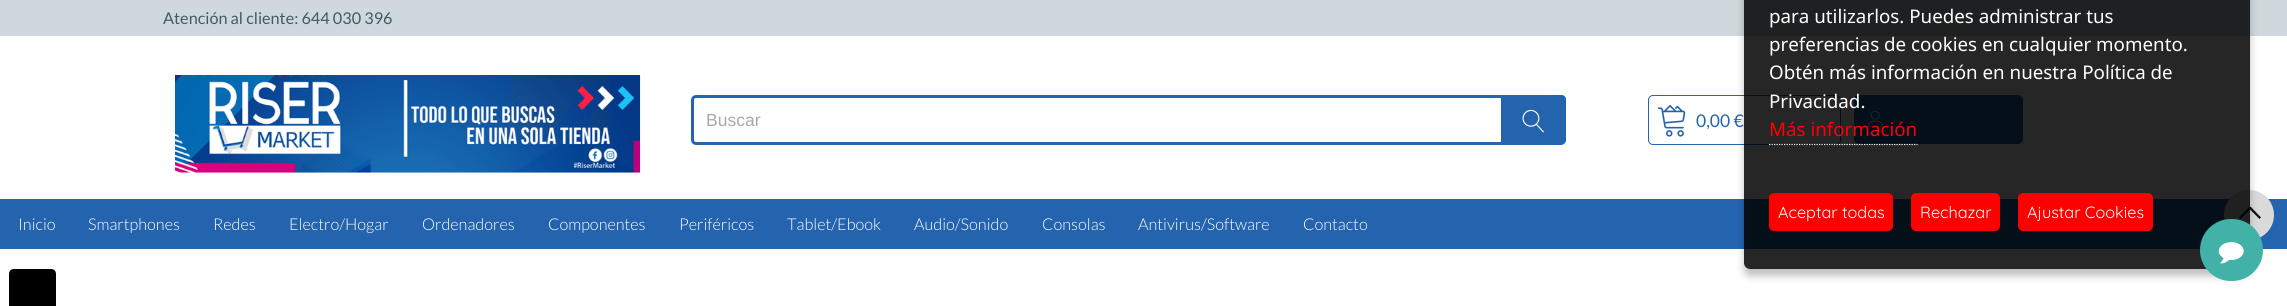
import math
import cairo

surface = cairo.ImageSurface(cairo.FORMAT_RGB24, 2287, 306)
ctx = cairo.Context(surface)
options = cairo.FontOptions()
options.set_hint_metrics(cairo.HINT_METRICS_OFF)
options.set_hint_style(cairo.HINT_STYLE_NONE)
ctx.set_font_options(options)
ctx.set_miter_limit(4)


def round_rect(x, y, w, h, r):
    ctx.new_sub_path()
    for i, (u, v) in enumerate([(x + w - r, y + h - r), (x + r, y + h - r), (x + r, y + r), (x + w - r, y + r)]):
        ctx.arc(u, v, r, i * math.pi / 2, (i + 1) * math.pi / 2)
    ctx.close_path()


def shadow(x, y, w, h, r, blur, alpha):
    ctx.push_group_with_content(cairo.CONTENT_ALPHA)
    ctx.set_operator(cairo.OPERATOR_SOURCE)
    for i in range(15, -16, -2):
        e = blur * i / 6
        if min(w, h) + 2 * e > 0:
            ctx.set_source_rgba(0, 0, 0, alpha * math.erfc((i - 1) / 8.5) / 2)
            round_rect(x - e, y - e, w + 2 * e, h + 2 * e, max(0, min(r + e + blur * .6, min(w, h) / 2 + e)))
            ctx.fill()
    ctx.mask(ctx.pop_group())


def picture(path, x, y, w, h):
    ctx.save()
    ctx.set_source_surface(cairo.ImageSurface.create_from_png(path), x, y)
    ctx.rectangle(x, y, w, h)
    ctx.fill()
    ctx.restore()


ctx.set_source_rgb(1, 1, 1)
ctx.paint()
ctx.set_source_rgb(0.812, 0.847, 0.863)
ctx.rectangle(0, 0, 2287, 36)
ctx.fill()
ctx.select_font_face("Lato")
ctx.set_font_size(16.25)
ctx.set_source_rgb(0.271, 0.353, 0.392)
ctx.move_to(163, 24)
ctx.show_text("Atención al cliente: 644 030 396")
picture("img1.png", 175, 75, 466, 98)
round_rect(692.5, 96.5, 872, 47, 3.5)
ctx.set_source_rgb(0.141, 0.392, 0.682)
ctx.set_line_width(3)
ctx.stroke()
ctx.select_font_face("Liberation Sans")
ctx.set_font_size(17.5)
ctx.set_source_rgb(0.667, 0.667, 0.667)
ctx.move_to(706, 126)
ctx.show_text("Buscar")
ctx.set_source_rgb(0.141, 0.392, 0.682)
ctx.new_path()
ctx.move_to(1501, 95)
ctx.line_to(1561, 95)
ctx.curve_to(1564, 95, 1566, 97, 1566, 100)
ctx.line_to(1566, 139)
ctx.curve_to(1566, 142, 1564, 144, 1561, 144)
ctx.line_to(1501, 144)
ctx.close_path()
ctx.fill()
picture("img2.png", 1522, 109, 22, 24)
round_rect(1648.5, 95.5, 192, 49, 4.5)
ctx.set_line_width(1)
ctx.stroke()
picture("img3.png", 1657, 105, 29, 32)
ctx.select_font_face("Lato")
ctx.move_to(1696, 127)
ctx.show_text("0,00 €")
round_rect(1854, 95, 169, 49, 5)
ctx.fill()
picture("img4.png", 1867, 110, 16, 18)
ctx.rectangle(0, 199, 2287, 50)
ctx.fill()
ctx.select_font_face("Lato Light")
ctx.set_font_size(16.25)
ctx.set_source_rgb(1, 1, 1)
ctx.move_to(18, 230)
ctx.show_text("Inicio")
ctx.move_to(88, 230)
ctx.show_text("Smartphones")
ctx.move_to(213, 230)
ctx.show_text("Redes")
ctx.move_to(289, 230)
ctx.show_text("Electro/Hogar")
ctx.move_to(422, 230)
ctx.show_text("Ordenadores")
ctx.move_to(548, 230)
ctx.show_text("Componentes")
ctx.move_to(679, 230)
ctx.show_text("Periféricos")
ctx.move_to(787, 230)
ctx.show_text("Tablet/Ebook")
ctx.move_to(914, 230)
ctx.show_text("Audio/Sonido")
ctx.move_to(1042, 230)
ctx.show_text("Consolas")
ctx.move_to(1138, 230)
ctx.show_text("Antivirus/Software")
ctx.move_to(1303, 230)
ctx.show_text("Contacto")
ctx.set_source_rgb(0.855, 0.855, 0.855)
ctx.new_path()
ctx.arc(2249, 215, 25, 0, 2 * math.pi)
ctx.fill()
ctx.set_source_rgb(0.067, 0.067, 0.067)
ctx.new_path()
ctx.move_to(2251, 208.5)
ctx.line_to(2240.5, 219)
ctx.line_to(2239, 217.5)
ctx.line_to(2249.5, 206.5)
ctx.close_path()
ctx.fill()
ctx.new_path()
ctx.move_to(2259.5, 219)
ctx.line_to(2249, 208.5)
ctx.line_to(2250.5, 206.5)
ctx.line_to(2261, 217.5)
ctx.close_path()
ctx.fill()
ctx.save()
ctx.set_fill_rule(cairo.FILL_RULE_EVEN_ODD)
ctx.new_path()
ctx.move_to(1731, 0)
ctx.line_to(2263, 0)
ctx.line_to(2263, 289)
ctx.line_to(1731, 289)
ctx.close_path()
ctx.move_to(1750, -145)
ctx.line_to(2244, -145)
ctx.curve_to(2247.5, -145, 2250, -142.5, 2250, -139)
ctx.line_to(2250, 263)
ctx.curve_to(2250, 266.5, 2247.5, 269, 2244, 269)
ctx.line_to(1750, 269)
ctx.curve_to(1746.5, 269, 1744, 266.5, 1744, 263)
ctx.line_to(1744, -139)
ctx.curve_to(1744, -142.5, 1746.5, -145, 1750, -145)
ctx.close_path()
ctx.clip()
ctx.set_source_rgb(0, 0, 0)
shadow(1744, -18, 506, 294, 6, 4, 0.25)
ctx.restore()
ctx.set_source_rgba(0, 0, 0, 0.85)
round_rect(1744, -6, 506, 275, 6)
ctx.fill()
ctx.select_font_face("Noto Sans")
ctx.set_font_size(18.75)
ctx.set_source_rgb(1, 1, 1)
ctx.move_to(1769, 23)
ctx.show_text("para utilizarlos. Puedes administrar tus")
ctx.move_to(1769, 51)
ctx.show_text("preferencias de cookies en cualquier momento.")
ctx.move_to(1769, 79)
ctx.show_text("Obtén más información en nuestra Política de")
ctx.move_to(1769, 108)
ctx.show_text("Privacidad.")
ctx.set_source_rgb(1, 0, 0)
ctx.move_to(1769, 136)
ctx.show_text("Más información")
ctx.new_path()
ctx.move_to(1769, 144.5)
ctx.line_to(1917.5, 144.5)
ctx.set_source_rgb(1, 1, 1)
ctx.set_line_width(1.2)
ctx.set_dash([1.25, 1.25])
ctx.stroke()
ctx.set_source_rgb(1, 0, 0)
round_rect(1769, 193, 124, 38, 5)
ctx.fill()
ctx.select_font_face("Quicksand")
ctx.set_font_size(16.25)
ctx.set_source_rgb(1, 1, 1)
ctx.move_to(1778, 218)
ctx.show_text("Aceptar todas")
ctx.set_source_rgb(1, 0, 0)
round_rect(1911, 193, 89, 38, 5)
ctx.fill()
ctx.set_source_rgb(1, 1, 1)
ctx.move_to(1920, 218)
ctx.show_text("Rechazar")
ctx.set_source_rgb(1, 0, 0)
round_rect(2018, 193, 135, 38, 5)
ctx.fill()
ctx.set_source_rgb(1, 1, 1)
ctx.move_to(2027, 218)
ctx.show_text("Ajustar Cookies")
ctx.set_source_rgb(0.259, 0.694, 0.659)
round_rect(2200, 219, 63, 62, 31)
ctx.fill()
picture("img5.png", 2218, 242, 26, 22)
ctx.set_source_rgb(0, 0, 0)
ctx.new_path()
ctx.move_to(14, 269)
ctx.line_to(51, 269)
ctx.curve_to(54, 269, 56, 271, 56, 274)
ctx.line_to(56, 306)
ctx.line_to(9, 306)
ctx.line_to(9, 274)
ctx.curve_to(9, 271, 11, 269, 14, 269)
ctx.close_path()
ctx.fill()
surface.write_to_png("page.png")
